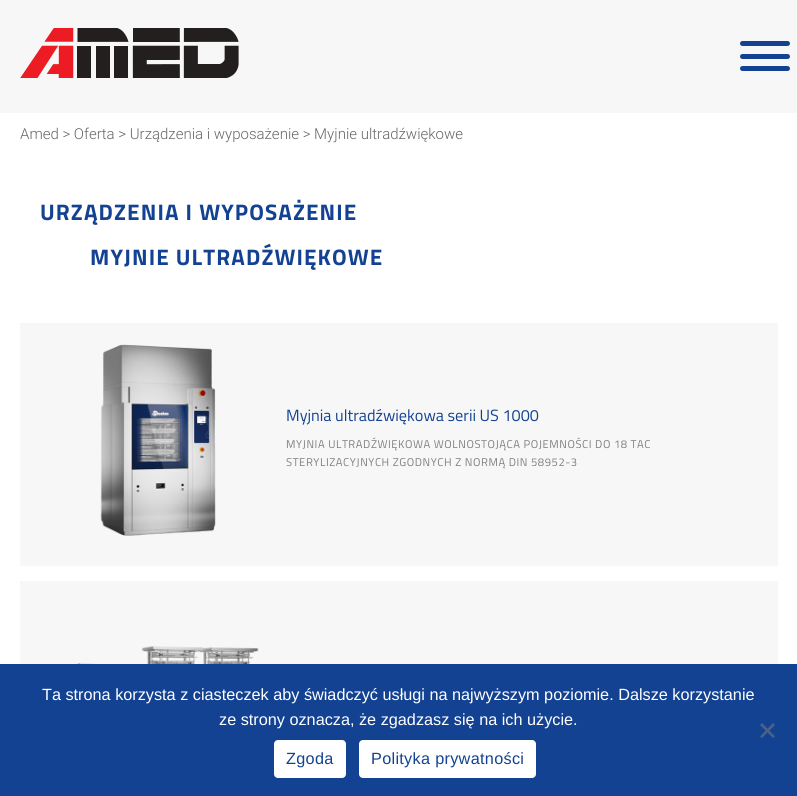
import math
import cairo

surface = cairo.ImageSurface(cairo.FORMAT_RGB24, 797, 796)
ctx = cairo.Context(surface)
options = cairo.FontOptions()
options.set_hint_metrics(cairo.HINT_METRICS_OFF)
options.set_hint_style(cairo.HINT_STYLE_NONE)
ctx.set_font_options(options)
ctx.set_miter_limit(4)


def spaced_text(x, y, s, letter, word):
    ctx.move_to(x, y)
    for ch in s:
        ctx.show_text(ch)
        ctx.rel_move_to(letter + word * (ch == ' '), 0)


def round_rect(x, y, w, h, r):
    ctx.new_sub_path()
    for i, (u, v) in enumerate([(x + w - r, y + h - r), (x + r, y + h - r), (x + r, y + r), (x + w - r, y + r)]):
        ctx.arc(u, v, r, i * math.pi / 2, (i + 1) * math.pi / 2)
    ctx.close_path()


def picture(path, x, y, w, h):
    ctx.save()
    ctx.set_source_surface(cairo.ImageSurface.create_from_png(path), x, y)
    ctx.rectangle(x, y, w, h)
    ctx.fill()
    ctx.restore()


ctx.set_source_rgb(1, 1, 1)
ctx.paint()
ctx.set_source_rgb(0.965, 0.965, 0.965)
ctx.rectangle(0, 0, 797, 113)
ctx.fill()
picture("img1.png", 20, 28, 219, 50)
ctx.set_source_rgb(0.075, 0.259, 0.573)
round_rect(740, 41, 50, 5, 2.5)
ctx.fill()
round_rect(740, 54, 50, 5, 2.5)
ctx.fill()
round_rect(740, 66, 50, 5, 2.5)
ctx.fill()
ctx.select_font_face("Roboto Light")
ctx.set_font_size(15)
ctx.set_source_rgb(0.4, 0.4, 0.4)
ctx.move_to(20, 139)
ctx.show_text("Amed > Oferta > Urządzenia i wyposażenie > Myjnie ultradźwiękowe")
ctx.select_font_face("Titillium Web", cairo.FONT_SLANT_NORMAL, cairo.FONT_WEIGHT_BOLD)
ctx.set_font_size(22.5)
ctx.set_source_rgb(0.075, 0.259, 0.573)
spaced_text(40, 220, "URZĄDZENIA I WYPOSAŻENIE", 1.1, 0)
spaced_text(90, 265, "MYJNIE ULTRADŹWIĘKOWE", 1.1, 0)
ctx.set_source_rgb(0.965, 0.965, 0.965)
ctx.rectangle(20, 323, 758, 243)
ctx.fill()
picture("img2.png", 100, 344, 116, 192)
ctx.select_font_face("Titillium Web")
ctx.set_font_size(16.25)
ctx.set_source_rgb(0.075, 0.259, 0.573)
ctx.move_to(286, 421)
ctx.show_text("Myjnia ultradźwiękowa serii US 1000")
ctx.set_font_size(11.25)
ctx.set_source_rgb(0.502, 0.502, 0.502)
spaced_text(286, 448, "MYJNIA ULTRADŹWIĘKOWA WOLNOSTOJĄCA POJEMNOŚCI DO 18 TAC", 0.55, 0)
spaced_text(286, 466, "STERYLIZACYJNYCH ZGODNYCH Z NORMĄ DIN 58952-3", 0.55, 0)
ctx.set_source_rgb(0.965, 0.965, 0.965)
ctx.rectangle(20, 581, 758, 83)
ctx.fill()
picture("img3.png", 76, 646, 183, 18)
ctx.set_source_rgb(0.075, 0.259, 0.573)
ctx.rectangle(0, 664, 797, 132)
ctx.fill()
ctx.select_font_face("Liberation Sans")
ctx.set_font_size(16.25)
ctx.set_source_rgb(1, 1, 1)
ctx.move_to(42, 700)
ctx.show_text("Ta strona korzysta z ciasteczek aby świadczyć usługi na najwyższym poziomie. Dalsze korzystanie")
ctx.move_to(219, 725)
ctx.show_text("ze strony oznacza, że zgadzasz się na ich użycie.")
ctx.set_source_rgb(0.29, 0.38, 0.537)
ctx.new_path()
ctx.move_to(773, 723)
ctx.line_to(775, 725)
ctx.line_to(762, 738)
ctx.line_to(760, 736.5)
ctx.close_path()
ctx.fill()
ctx.new_path()
ctx.move_to(760, 725)
ctx.line_to(762, 723)
ctx.line_to(775, 736.5)
ctx.line_to(773, 738)
ctx.close_path()
ctx.fill()
ctx.set_source_rgb(1, 1, 1)
round_rect(274, 740, 72, 38, 4)
ctx.fill()
ctx.set_source_rgb(0.075, 0.259, 0.573)
spaced_text(286, 764, "Zgoda", 0.3, 0)
ctx.set_source_rgb(1, 1, 1)
round_rect(359, 740, 177, 38, 4)
ctx.fill()
ctx.set_source_rgb(0.075, 0.259, 0.573)
spaced_text(371, 764, "Polityka prywatności", 0.3, 0)
surface.write_to_png("page.png")
